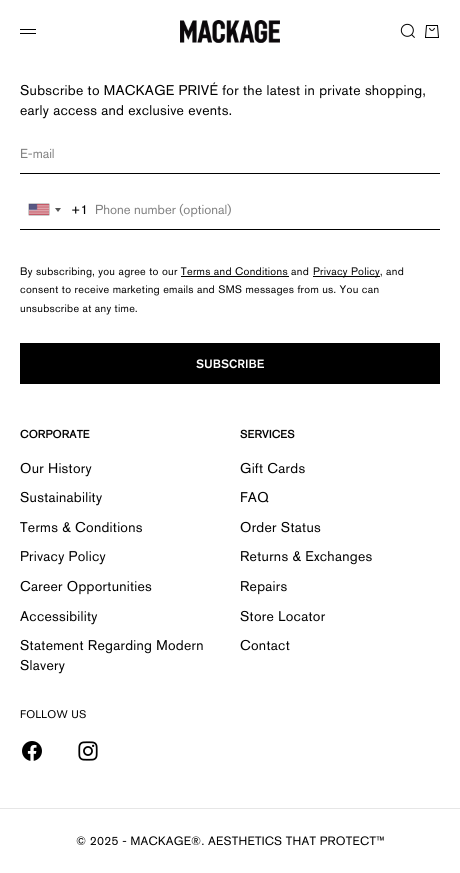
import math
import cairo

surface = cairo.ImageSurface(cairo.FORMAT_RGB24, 460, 873)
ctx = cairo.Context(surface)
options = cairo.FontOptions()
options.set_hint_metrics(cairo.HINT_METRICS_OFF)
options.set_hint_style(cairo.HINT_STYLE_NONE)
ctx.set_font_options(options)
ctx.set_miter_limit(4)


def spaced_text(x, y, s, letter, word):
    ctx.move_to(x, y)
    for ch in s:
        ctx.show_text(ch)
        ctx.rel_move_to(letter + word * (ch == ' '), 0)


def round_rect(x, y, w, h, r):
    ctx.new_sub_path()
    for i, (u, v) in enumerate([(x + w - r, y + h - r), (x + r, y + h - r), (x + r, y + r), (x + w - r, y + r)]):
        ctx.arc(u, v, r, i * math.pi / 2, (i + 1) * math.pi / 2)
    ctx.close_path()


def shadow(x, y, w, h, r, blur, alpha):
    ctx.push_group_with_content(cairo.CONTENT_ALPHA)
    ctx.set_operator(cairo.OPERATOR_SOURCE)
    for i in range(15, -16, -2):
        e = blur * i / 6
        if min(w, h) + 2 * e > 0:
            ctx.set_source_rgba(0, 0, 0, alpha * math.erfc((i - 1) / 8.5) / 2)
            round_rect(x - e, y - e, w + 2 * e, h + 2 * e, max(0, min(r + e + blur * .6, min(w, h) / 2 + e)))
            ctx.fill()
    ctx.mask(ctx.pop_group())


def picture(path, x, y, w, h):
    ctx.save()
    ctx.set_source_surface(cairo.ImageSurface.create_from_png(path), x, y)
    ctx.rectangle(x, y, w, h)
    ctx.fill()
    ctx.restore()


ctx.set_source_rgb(1, 1, 1)
ctx.paint()
ctx.set_source_rgb(0, 0, 0)
ctx.rectangle(20, 29, 16, 1)
ctx.fill()
ctx.rectangle(20, 33, 16, 1)
ctx.fill()
picture("img1.png", 180, 20, 100, 23)
picture("img2.png", 400, 23, 15, 15)
picture("img3.png", 425, 25, 14, 13)
ctx.select_font_face("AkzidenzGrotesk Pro")
ctx.set_font_size(14)
spaced_text(20, 95, "Subscribe to MACKAGE PRIVÉ for the latest in private shopping,", 0.28, 0)
spaced_text(20, 115, "early access and exclusive events.", 0.28, 0)
ctx.rectangle(20, 173, 420, 1)
ctx.fill()
ctx.set_font_size(13)
ctx.set_source_rgb(0.502, 0.502, 0.502)
ctx.move_to(20, 158)
ctx.show_text("E-mail")
ctx.set_source_rgb(0, 0, 0)
ctx.rectangle(20, 229, 420, 1)
ctx.fill()
ctx.set_source_rgb(0.533, 0.533, 0.533)
shadow(29, 204, 20, 11, 0, 0.5, 1)
picture("img4.png", 29, 204, 20, 11)
ctx.set_source_rgb(0, 0, 0)
ctx.move_to(71, 214)
ctx.show_text("+1")
ctx.save()
ctx.set_fill_rule(cairo.FILL_RULE_EVEN_ODD)
ctx.new_path()
ctx.move_to(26, 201)
ctx.line_to(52, 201)
ctx.line_to(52, 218)
ctx.line_to(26, 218)
ctx.close_path()
ctx.move_to(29, 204)
ctx.line_to(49, 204)
ctx.line_to(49, 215)
ctx.line_to(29, 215)
ctx.close_path()
ctx.clip()
ctx.set_source_rgb(0.533, 0.533, 0.533)
shadow(29, 204, 20, 11, 0, 0.5, 1)
ctx.restore()
ctx.set_source_rgb(0.333, 0.333, 0.333)
ctx.new_path()
ctx.move_to(55, 208)
ctx.line_to(61, 208)
ctx.line_to(58, 212)
ctx.close_path()
ctx.fill()
ctx.set_source_rgb(0.502, 0.502, 0.502)
ctx.move_to(95, 214)
ctx.show_text("Phone number (optional)")
ctx.set_font_size(10.8)
ctx.set_source_rgb(0, 0, 0)
spaced_text(20, 275, "By subscribing, you agree to our Terms and Conditions and", 0.28, 0)
ctx.rectangle(181, 276, 108, 1)
ctx.fill()
ctx.rectangle(313, 276, 67, 1)
ctx.fill()
spaced_text(313, 275, "Privacy Policy, and", 0.28, 0)
spaced_text(20, 293, "consent to receive marketing emails and SMS messages from us. You can", 0.28, 0)
spaced_text(20, 312, "unsubscribe at any time.", 0.28, 0)
ctx.rectangle(20, 343, 420, 41)
ctx.fill()
ctx.select_font_face("AkzidenzGrotesk Pro Medium")
ctx.set_font_size(12)
ctx.set_source_rgb(1, 1, 1)
ctx.move_to(196, 368)
ctx.show_text("SUBSCRIBE")
ctx.select_font_face("AkzidenzGrotesk Pro", cairo.FONT_SLANT_NORMAL, cairo.FONT_WEIGHT_BOLD)
ctx.set_font_size(11)
ctx.set_source_rgb(0, 0, 0)
spaced_text(20, 438, "CORPORATE", 0.25, 0)
ctx.select_font_face("AkzidenzGrotesk Pro")
ctx.set_font_size(14)
spaced_text(20, 473, "Our History", 0.28, 0)
spaced_text(20, 502, "Sustainability", 0.28, 0)
spaced_text(20, 532, "Terms & Conditions", 0.28, 0)
spaced_text(20, 561, "Privacy Policy", 0.28, 0)
spaced_text(20, 591, "Career Opportunities", 0.28, 0)
spaced_text(20, 621, "Accessibility", 0.28, 0)
spaced_text(20, 650, "Statement Regarding Modern", 0.28, 0)
spaced_text(20, 670, "Slavery", 0.28, 0)
ctx.select_font_face("AkzidenzGrotesk Pro", cairo.FONT_SLANT_NORMAL, cairo.FONT_WEIGHT_BOLD)
ctx.set_font_size(11)
spaced_text(240, 438, "SERVICES", 0.25, 0)
ctx.select_font_face("AkzidenzGrotesk Pro")
ctx.set_font_size(14)
spaced_text(240, 473, "Gift Cards", 0.28, 0)
spaced_text(240, 502, "FAQ", 0.28, 0)
spaced_text(240, 532, "Order Status", 0.28, 0)
spaced_text(240, 561, "Returns & Exchanges", 0.28, 0)
spaced_text(240, 591, "Repairs", 0.28, 0)
spaced_text(240, 621, "Store Locator", 0.28, 0)
spaced_text(240, 650, "Contact", 0.28, 0)
ctx.set_font_size(11)
spaced_text(20, 718, "FOLLOW US", 0.25, 0)
picture("img5.png", 22, 741, 20, 20)
picture("img6.png", 78, 741, 20, 20)
ctx.set_source_rgb(0.902, 0.902, 0.902)
ctx.rectangle(0, 808, 460, 1)
ctx.fill()
ctx.set_font_size(12)
ctx.set_source_rgb(0, 0, 0)
spaced_text(76, 845, "© 2025 - MACKAGE®. AESTHETICS THAT PROTECT™", 0.25, 0)
surface.write_to_png("page.png")
